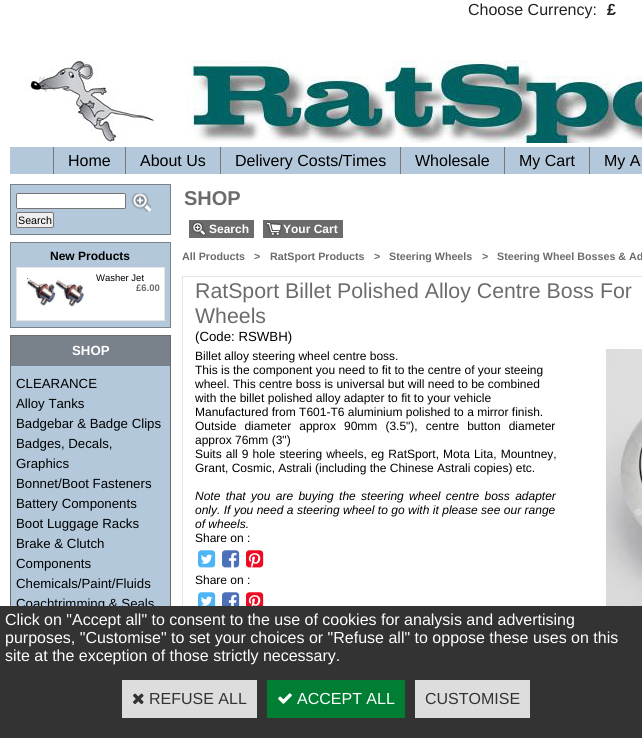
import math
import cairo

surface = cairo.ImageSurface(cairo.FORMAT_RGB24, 642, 738)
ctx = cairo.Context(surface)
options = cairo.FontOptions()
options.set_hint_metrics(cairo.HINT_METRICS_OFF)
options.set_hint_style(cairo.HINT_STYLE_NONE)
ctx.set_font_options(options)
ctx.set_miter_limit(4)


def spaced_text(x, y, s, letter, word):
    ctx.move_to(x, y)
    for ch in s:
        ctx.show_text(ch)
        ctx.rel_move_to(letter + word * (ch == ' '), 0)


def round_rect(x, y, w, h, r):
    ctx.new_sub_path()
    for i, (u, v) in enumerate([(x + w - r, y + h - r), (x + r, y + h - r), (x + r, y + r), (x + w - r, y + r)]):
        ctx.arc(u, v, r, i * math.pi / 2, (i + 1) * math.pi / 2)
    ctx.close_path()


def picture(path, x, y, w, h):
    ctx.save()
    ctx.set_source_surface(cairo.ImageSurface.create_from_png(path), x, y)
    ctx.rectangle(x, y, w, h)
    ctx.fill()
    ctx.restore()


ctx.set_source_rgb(1, 1, 1)
ctx.paint()
ctx.select_font_face("Liberation Sans")
ctx.set_font_size(16)
ctx.set_source_rgb(0.133, 0.133, 0.133)
ctx.move_to(468, 15)
ctx.show_text("Choose Currency:")
ctx.select_font_face("Liberation Sans", cairo.FONT_SLANT_NORMAL, cairo.FONT_WEIGHT_BOLD)
ctx.move_to(607, 15)
ctx.show_text("£")
picture("img1.png", 26, 60, 616, 83)
ctx.set_source_rgb(0.702, 0.784, 0.855)
ctx.rectangle(10, 147, 632, 27)
ctx.fill()
ctx.set_source_rgb(0.471, 0.471, 0.471)
ctx.rectangle(53, 147, 1, 27)
ctx.fill()
ctx.select_font_face("Liberation Sans")
ctx.set_source_rgb(0, 0, 0)
ctx.move_to(68, 166)
ctx.show_text("Home")
ctx.set_source_rgb(0.471, 0.471, 0.471)
ctx.rectangle(125, 147, 1, 27)
ctx.fill()
ctx.set_source_rgb(0, 0, 0)
ctx.move_to(140, 166)
ctx.show_text("About Us")
ctx.set_source_rgb(0.471, 0.471, 0.471)
ctx.rectangle(220, 147, 1, 27)
ctx.fill()
ctx.set_source_rgb(0, 0, 0)
ctx.move_to(235, 166)
ctx.show_text("Delivery Costs/Times")
ctx.set_source_rgb(0.471, 0.471, 0.471)
ctx.rectangle(400, 147, 1, 27)
ctx.fill()
ctx.set_source_rgb(0, 0, 0)
ctx.move_to(415, 166)
ctx.show_text("Wholesale")
ctx.set_source_rgb(0.471, 0.471, 0.471)
ctx.rectangle(504, 147, 1, 27)
ctx.fill()
ctx.set_source_rgb(0, 0, 0)
ctx.move_to(519, 166)
ctx.show_text("My Cart")
ctx.set_source_rgb(0.471, 0.471, 0.471)
ctx.rectangle(589, 147, 1, 27)
ctx.fill()
ctx.set_source_rgb(0, 0, 0)
ctx.move_to(604, 166)
ctx.show_text("My A")
ctx.set_source_rgb(0.702, 0.784, 0.855)
ctx.rectangle(10.5, 184.5, 160, 50)
ctx.fill_preserve()
ctx.set_source_rgb(0.475, 0.51, 0.541)
ctx.set_line_width(1)
ctx.stroke()
ctx.set_source_rgb(1, 1, 1)
round_rect(16.5, 193.5, 109, 15, 1.5)
ctx.fill_preserve()
ctx.set_source_rgb(0.463, 0.463, 0.463)
ctx.stroke()
picture("img2.png", 131, 193, 20, 19)
ctx.set_source_rgb(0.937, 0.937, 0.937)
round_rect(16.5, 212.5, 37, 15, 1.5)
ctx.fill_preserve()
ctx.set_source_rgb(0.463, 0.463, 0.463)
ctx.stroke()
ctx.set_font_size(10.7)
ctx.set_source_rgb(0, 0, 0)
ctx.move_to(18, 224)
ctx.show_text("Search")
ctx.set_source_rgb(0.702, 0.784, 0.855)
ctx.rectangle(10.5, 242.5, 160, 85)
ctx.fill_preserve()
ctx.set_source_rgb(0.475, 0.51, 0.541)
ctx.stroke()
ctx.select_font_face("Liberation Sans", cairo.FONT_SLANT_NORMAL, cairo.FONT_WEIGHT_BOLD)
ctx.set_font_size(12)
ctx.set_source_rgb(0, 0, 0)
ctx.move_to(50, 260)
ctx.show_text("New Products")
ctx.set_source_rgb(1, 1, 1)
ctx.rectangle(16.5, 267.5, 148, 53)
ctx.fill_preserve()
ctx.set_source_rgb(0.898, 0.898, 0.898)
ctx.stroke()
picture("img3.png", 27, 278, 58, 29)
ctx.select_font_face("Liberation Sans")
ctx.set_font_size(9.5)
ctx.set_source_rgb(0, 0, 0)
ctx.move_to(96, 281)
ctx.show_text("Washer Jet")
ctx.select_font_face("Liberation Sans", cairo.FONT_SLANT_NORMAL, cairo.FONT_WEIGHT_BOLD)
ctx.set_source_rgb(0.42, 0.42, 0.42)
ctx.move_to(136, 291)
ctx.show_text("£6.00")
ctx.set_source_rgb(0.424, 0.42, 0.42)
ctx.rectangle(10, 335, 161, 1)
ctx.fill()
ctx.rectangle(170, 336, 1, 278)
ctx.fill()
ctx.rectangle(10, 336, 1, 278)
ctx.fill()
ctx.set_source_rgb(0.475, 0.51, 0.541)
ctx.rectangle(11, 336, 159, 30)
ctx.fill()
ctx.set_font_size(13.25)
ctx.set_source_rgb(1, 1, 1)
ctx.move_to(72, 355)
ctx.show_text("SHOP")
ctx.set_source_rgb(0.702, 0.784, 0.855)
ctx.rectangle(11, 366, 159, 240)
ctx.fill()
ctx.select_font_face("Liberation Sans")
ctx.set_source_rgb(0, 0, 0)
ctx.move_to(16, 388)
ctx.show_text("CLEARANCE")
ctx.move_to(16, 408)
ctx.show_text("Alloy Tanks")
ctx.move_to(16, 428)
ctx.show_text("Badgebar & Badge Clips")
ctx.move_to(16, 448)
ctx.show_text("Badges, Decals,")
ctx.move_to(16, 468)
ctx.show_text("Graphics")
ctx.move_to(16, 488)
ctx.show_text("Bonnet/Boot Fasteners")
ctx.move_to(16, 508)
ctx.show_text("Battery Components")
ctx.move_to(16, 528)
ctx.show_text("Boot Luggage Racks")
ctx.move_to(16, 548)
ctx.show_text("Brake & Clutch")
ctx.move_to(16, 568)
ctx.show_text("Components")
ctx.move_to(16, 588)
ctx.show_text("Chemicals/Paint/Fluids")
ctx.move_to(16, 608)
ctx.show_text("Coachtrimming & Seals")
ctx.select_font_face("Liberation Sans", cairo.FONT_SLANT_NORMAL, cairo.FONT_WEIGHT_BOLD)
ctx.set_font_size(20)
ctx.set_source_rgb(0.42, 0.42, 0.42)
ctx.move_to(184, 205)
ctx.show_text("SHOP")
ctx.rectangle(189, 220, 65, 18)
ctx.fill()
picture("img4.png", 191, 221, 15, 15)
ctx.set_font_size(12)
ctx.set_source_rgb(1, 1, 1)
ctx.move_to(209, 233)
ctx.show_text("Search")
ctx.set_source_rgb(0.42, 0.42, 0.42)
ctx.rectangle(263, 220, 80, 18)
ctx.fill()
picture("img5.png", 265, 221, 18, 15)
ctx.set_source_rgb(1, 1, 1)
ctx.move_to(283, 233)
ctx.show_text("Your Cart")
ctx.set_font_size(10.7)
ctx.set_source_rgb(0.42, 0.42, 0.42)
ctx.move_to(182, 260)
ctx.show_text("All Products")
ctx.move_to(254, 260)
ctx.show_text(">")
ctx.move_to(270, 260)
ctx.show_text("RatSport Products")
ctx.move_to(374, 260)
ctx.show_text(">")
ctx.move_to(389, 260)
ctx.show_text("Steering Wheels")
ctx.move_to(482, 260)
ctx.show_text(">")
ctx.move_to(497, 260)
ctx.show_text("Steering Wheel Bosses & Ad")
ctx.rectangle(182.5, 276.5, 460, 448)
ctx.set_source_rgb(0.898, 0.898, 0.898)
ctx.stroke()
ctx.select_font_face("Liberation Sans")
ctx.set_font_size(21.3)
ctx.set_source_rgb(0.42, 0.42, 0.42)
ctx.move_to(195, 298)
ctx.show_text("RatSport Billet Polished Alloy Centre Boss For")
ctx.move_to(195, 323)
ctx.show_text("Wheels")
ctx.set_font_size(13.25)
ctx.set_source_rgb(0, 0, 0)
ctx.move_to(195, 341)
ctx.show_text("(Code: RSWBH)")
ctx.set_font_size(12)
ctx.move_to(195, 360)
ctx.show_text("Billet alloy steering wheel centre boss.")
ctx.move_to(195, 374)
ctx.show_text("This is the component you need to fit to the centre of your steeing")
ctx.move_to(195, 388)
ctx.show_text("wheel. This centre boss is universal but will need to be combined")
ctx.move_to(195, 402)
ctx.show_text("with the billet polished alloy adapter to fit to your vehicle")
ctx.move_to(195, 416)
ctx.show_text("Manufactured from T601-T6 aluminium polished to a mirror finish.")
spaced_text(195, 430, "Outside diameter approx 90mm (3.5\"), centre button diameter", 0, 4.75)
ctx.move_to(195, 444)
ctx.show_text("approx 76mm (3\")")
spaced_text(195, 458, "Suits all 9 hole steering wheels, eg RatSport, Mota Lita, Mountney,", 0, 0.75)
ctx.move_to(195, 472)
ctx.show_text("Grant, Cosmic, Astrali (including the Chinese Astrali copies) etc.")
ctx.select_font_face("Liberation Sans", cairo.FONT_SLANT_ITALIC)
spaced_text(195, 500, "Note that you are buying the steering wheel centre boss adapter", 0, 2)
spaced_text(195, 514, "only. If you need a steering wheel to go with it please see our range", 0, 0.1)
ctx.move_to(195, 528)
ctx.show_text("of wheels.")
ctx.select_font_face("Liberation Sans")
ctx.move_to(195, 542)
ctx.show_text("Share on :")
picture("img6.png", 198, 550, 18, 18)
picture("img7.png", 222, 550, 18, 18)
picture("img8.png", 246, 550, 18, 18)
picture("img9.png", 606, 349, 36, 257)
ctx.move_to(195, 584)
ctx.show_text("Share on :")
picture("img10.png", 198, 592, 18, 14)
picture("img11.png", 222, 592, 18, 14)
picture("img12.png", 246, 592, 18, 14)
ctx.set_source_rgb(0.2, 0.2, 0.2)
ctx.rectangle(0, 606, 642, 132)
ctx.fill()
ctx.set_font_size(16)
ctx.set_source_rgb(1, 1, 1)
ctx.move_to(5, 625)
ctx.show_text("Click on \"Accept all\" to consent to the use of cookies for analysis and advertising")
ctx.move_to(5, 643)
ctx.show_text("purposes, \"Customise\" to set your choices or \"Refuse all\" to oppose these uses on this")
ctx.move_to(5, 661)
ctx.show_text("site at the exception of those strictly necessary.")
ctx.set_source_rgb(0.867, 0.867, 0.867)
ctx.rectangle(122, 680, 135, 38)
ctx.fill()
picture("img13.png", 133, 693, 11, 12)
ctx.set_source_rgb(0.2, 0.2, 0.2)
ctx.move_to(149, 704)
ctx.show_text("REFUSE ALL")
ctx.set_source_rgb(0, 0.494, 0.2)
ctx.rectangle(267, 680, 138, 38)
ctx.fill()
picture("img14.png", 278, 693, 14, 11)
ctx.set_source_rgb(1, 1, 1)
ctx.move_to(297, 704)
ctx.show_text("ACCEPT ALL")
ctx.set_source_rgb(0.867, 0.867, 0.867)
ctx.rectangle(415, 680, 115, 38)
ctx.fill()
ctx.set_source_rgb(0.2, 0.2, 0.2)
ctx.move_to(425, 704)
ctx.show_text("CUSTOMISE")
surface.write_to_png("page.png")
